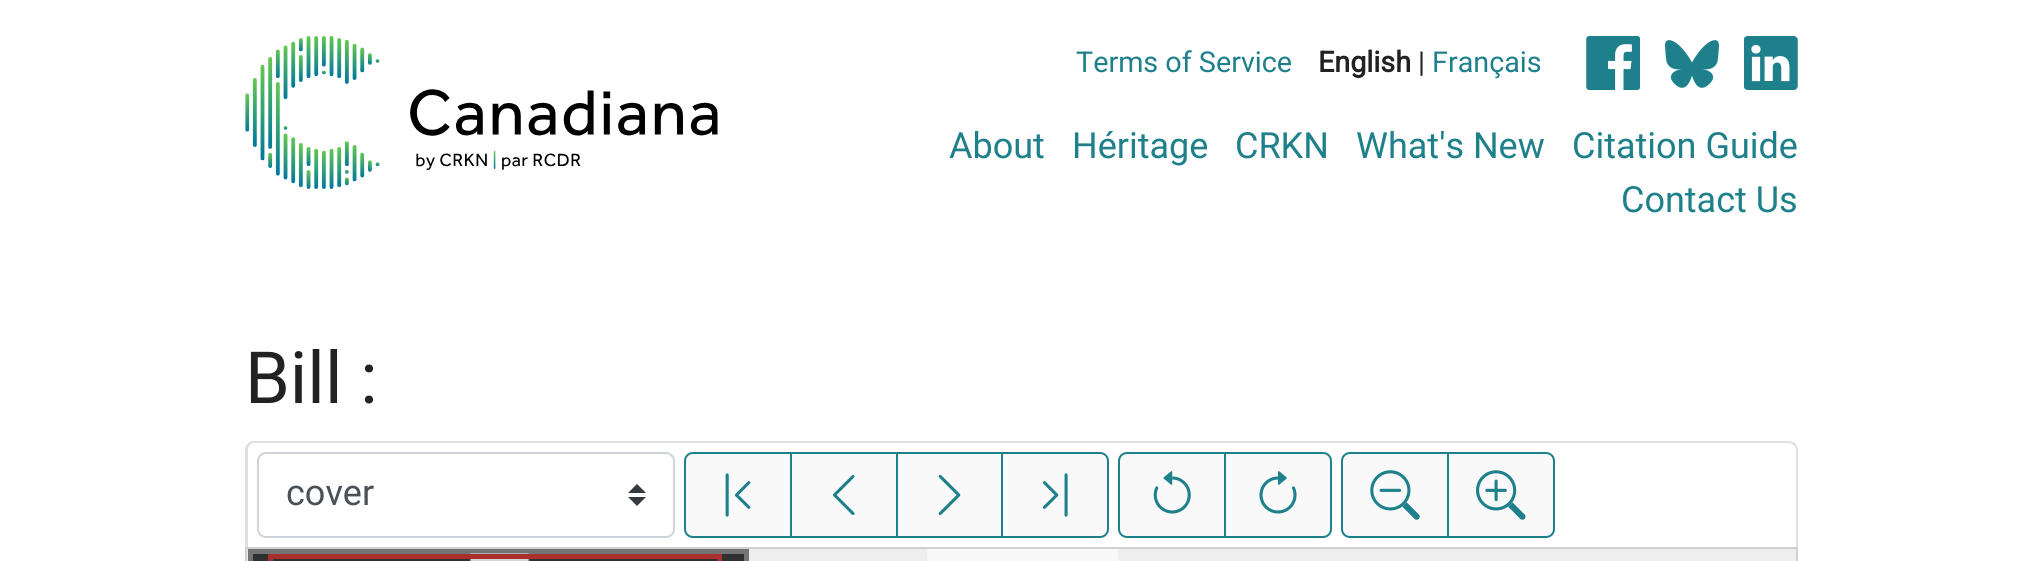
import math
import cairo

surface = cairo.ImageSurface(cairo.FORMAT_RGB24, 2042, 561)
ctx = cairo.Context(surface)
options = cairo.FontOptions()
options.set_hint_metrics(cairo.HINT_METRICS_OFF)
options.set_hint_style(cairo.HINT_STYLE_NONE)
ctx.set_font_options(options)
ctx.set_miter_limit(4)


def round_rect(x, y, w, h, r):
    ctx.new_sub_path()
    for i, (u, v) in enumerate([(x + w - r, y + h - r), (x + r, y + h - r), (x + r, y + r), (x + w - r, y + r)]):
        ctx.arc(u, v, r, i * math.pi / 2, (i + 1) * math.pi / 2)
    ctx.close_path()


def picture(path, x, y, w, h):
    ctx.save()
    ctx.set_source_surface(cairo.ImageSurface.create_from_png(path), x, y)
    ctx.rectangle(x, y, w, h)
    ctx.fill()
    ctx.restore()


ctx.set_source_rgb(1, 1, 1)
ctx.paint()
picture("img1.png", 245, 36, 473, 153)
ctx.select_font_face("Roboto")
ctx.set_font_size(28.75)
ctx.set_source_rgb(0.114, 0.502, 0.545)
ctx.move_to(1076, 72)
ctx.show_text("Terms of Service")
ctx.select_font_face("Roboto", cairo.FONT_SLANT_NORMAL, cairo.FONT_WEIGHT_BOLD)
ctx.set_source_rgb(0.133, 0.133, 0.133)
ctx.move_to(1318, 72)
ctx.show_text("English")
ctx.select_font_face("Roboto")
ctx.move_to(1418, 72)
ctx.show_text("|")
ctx.set_source_rgb(0.114, 0.502, 0.545)
ctx.move_to(1432, 72)
ctx.show_text("Français")
picture("img2.png", 1586, 36, 54, 54)
picture("img3.png", 1665, 40, 54, 48)
picture("img4.png", 1744, 36, 54, 54)
ctx.set_font_size(36)
ctx.move_to(949, 158)
ctx.show_text("About")
ctx.move_to(1072, 158)
ctx.show_text("Héritage")
ctx.move_to(1235, 158)
ctx.show_text("CRKN")
ctx.move_to(1356, 158)
ctx.show_text("What's New")
ctx.move_to(1572, 158)
ctx.show_text("Citation Guide")
ctx.move_to(1621, 212)
ctx.show_text("Contact Us")
ctx.set_font_size(72)
ctx.set_source_rgb(0.133, 0.133, 0.133)
ctx.move_to(245, 403)
ctx.show_text("Bill :")
ctx.set_source_rgb(0.875, 0.875, 0.875)
ctx.set_fill_rule(cairo.FILL_RULE_EVEN_ODD)
ctx.new_path()
ctx.move_to(254, 441)
ctx.line_to(1789, 441)
ctx.curve_to(1794, 441, 1798, 445, 1798, 450)
ctx.line_to(1798, 547)
ctx.line_to(245, 547)
ctx.line_to(245, 450)
ctx.curve_to(245, 445, 249, 441, 254, 441)
ctx.close_path()
ctx.move_to(254, 443)
ctx.line_to(1789, 443)
ctx.curve_to(1792, 443, 1796, 446, 1796, 450)
ctx.line_to(1796, 547)
ctx.line_to(248, 547)
ctx.line_to(248, 450)
ctx.curve_to(248, 446, 251, 443, 254, 443)
ctx.close_path()
ctx.fill()
ctx.set_source_rgb(0.204, 0.227, 0.251)
ctx.set_fill_rule(cairo.FILL_RULE_WINDING)
ctx.new_path()
ctx.move_to(637, 484)
ctx.line_to(628, 493)
ctx.line_to(646, 493)
ctx.close_path()
ctx.move_to(637, 506)
ctx.line_to(628, 497)
ctx.line_to(646, 497)
ctx.close_path()
ctx.fill()
round_rect(258, 453, 416, 84, 8)
ctx.set_source_rgb(0.808, 0.831, 0.855)
ctx.stroke()
ctx.set_font_size(36)
ctx.set_source_rgb(0.286, 0.314, 0.341)
ctx.move_to(286, 505)
ctx.show_text("cover")
ctx.set_source_rgb(0.973, 0.976, 0.98)
ctx.new_path()
ctx.move_to(693, 453)
ctx.line_to(791, 453)
ctx.line_to(791, 537)
ctx.line_to(693, 537)
ctx.curve_to(688.5, 537, 685, 533.5, 685, 529)
ctx.line_to(685, 461)
ctx.curve_to(685, 456.5, 688.5, 453, 693, 453)
ctx.close_path()
ctx.fill_preserve()
ctx.set_source_rgb(0.114, 0.502, 0.545)
ctx.stroke()
picture("img5.png", 725, 473, 26, 44)
ctx.set_source_rgb(0.973, 0.976, 0.98)
ctx.rectangle(791, 453, 106, 84)
ctx.fill_preserve()
ctx.set_source_rgb(0.114, 0.502, 0.545)
ctx.stroke()
picture("img6.png", 833, 474, 22, 42)
ctx.set_source_rgb(0.973, 0.976, 0.98)
ctx.rectangle(898, 454, 103, 82)
ctx.fill()
ctx.rectangle(897, 453, 106, 84)
ctx.set_source_rgb(0.114, 0.502, 0.545)
ctx.stroke()
picture("img7.png", 938, 474, 23, 42)
ctx.set_source_rgb(0.973, 0.976, 0.98)
ctx.new_path()
ctx.move_to(1002, 453)
ctx.line_to(1100, 453)
ctx.curve_to(1104.5, 453, 1108, 456.5, 1108, 461)
ctx.line_to(1108, 529)
ctx.curve_to(1108, 533.5, 1104.5, 537, 1100, 537)
ctx.line_to(1002, 537)
ctx.close_path()
ctx.fill_preserve()
ctx.set_source_rgb(0.114, 0.502, 0.545)
ctx.stroke()
picture("img8.png", 1042, 473, 26, 44)
ctx.set_source_rgb(0.973, 0.976, 0.98)
ctx.new_path()
ctx.move_to(1127, 453)
ctx.line_to(1225, 453)
ctx.line_to(1225, 537)
ctx.line_to(1127, 537)
ctx.curve_to(1122.5, 537, 1119, 533.5, 1119, 529)
ctx.line_to(1119, 461)
ctx.curve_to(1119, 456.5, 1122.5, 453, 1127, 453)
ctx.close_path()
ctx.fill_preserve()
ctx.set_source_rgb(0.114, 0.502, 0.545)
ctx.stroke()
picture("img9.png", 1153, 471, 38, 43)
ctx.set_source_rgb(0.973, 0.976, 0.98)
ctx.new_path()
ctx.move_to(1225, 453)
ctx.line_to(1323, 453)
ctx.curve_to(1327.5, 453, 1331, 456.5, 1331, 461)
ctx.line_to(1331, 529)
ctx.curve_to(1331, 533.5, 1327.5, 537, 1323, 537)
ctx.line_to(1225, 537)
ctx.close_path()
ctx.fill_preserve()
ctx.set_source_rgb(0.114, 0.502, 0.545)
ctx.stroke()
picture("img10.png", 1259, 471, 38, 43)
ctx.set_source_rgb(0.973, 0.976, 0.98)
ctx.new_path()
ctx.move_to(1350, 453)
ctx.line_to(1448, 453)
ctx.line_to(1448, 537)
ctx.line_to(1350, 537)
ctx.curve_to(1345.5, 537, 1342, 533.5, 1342, 529)
ctx.line_to(1342, 461)
ctx.curve_to(1342, 456.5, 1345.5, 453, 1350, 453)
ctx.close_path()
ctx.fill_preserve()
ctx.set_source_rgb(0.114, 0.502, 0.545)
ctx.stroke()
picture("img11.png", 1370, 470, 50, 50)
ctx.set_source_rgb(0.973, 0.976, 0.98)
ctx.new_path()
ctx.move_to(1448, 453)
ctx.line_to(1546, 453)
ctx.curve_to(1550.5, 453, 1554, 456.5, 1554, 461)
ctx.line_to(1554, 529)
ctx.curve_to(1554, 533.5, 1550.5, 537, 1546, 537)
ctx.line_to(1448, 537)
ctx.close_path()
ctx.fill_preserve()
ctx.set_source_rgb(0.114, 0.502, 0.545)
ctx.stroke()
picture("img12.png", 1476, 470, 50, 50)
ctx.set_source_rgb(0.933, 0.933, 0.933)
ctx.rectangle(246, 548, 1551, 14)
ctx.fill_preserve()
ctx.set_source_rgb(0.816, 0.816, 0.816)
ctx.stroke()
ctx.set_source_rgb(0.188, 0.188, 0.188)
ctx.rectangle(250.5, 551.5, 496, 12)
ctx.fill_preserve()
ctx.set_source_rgb(0.455, 0.455, 0.455)
ctx.set_line_width(5)
ctx.stroke()
picture("img13.png", 469, 553, 61, 8)
ctx.rectangle(270.5, 556.5, 449, 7)
ctx.set_source_rgb(0.667, 0.188, 0.188)
ctx.stroke()
picture("img14.png", 927, 549, 192, 12)
surface.write_to_png("page.png")
